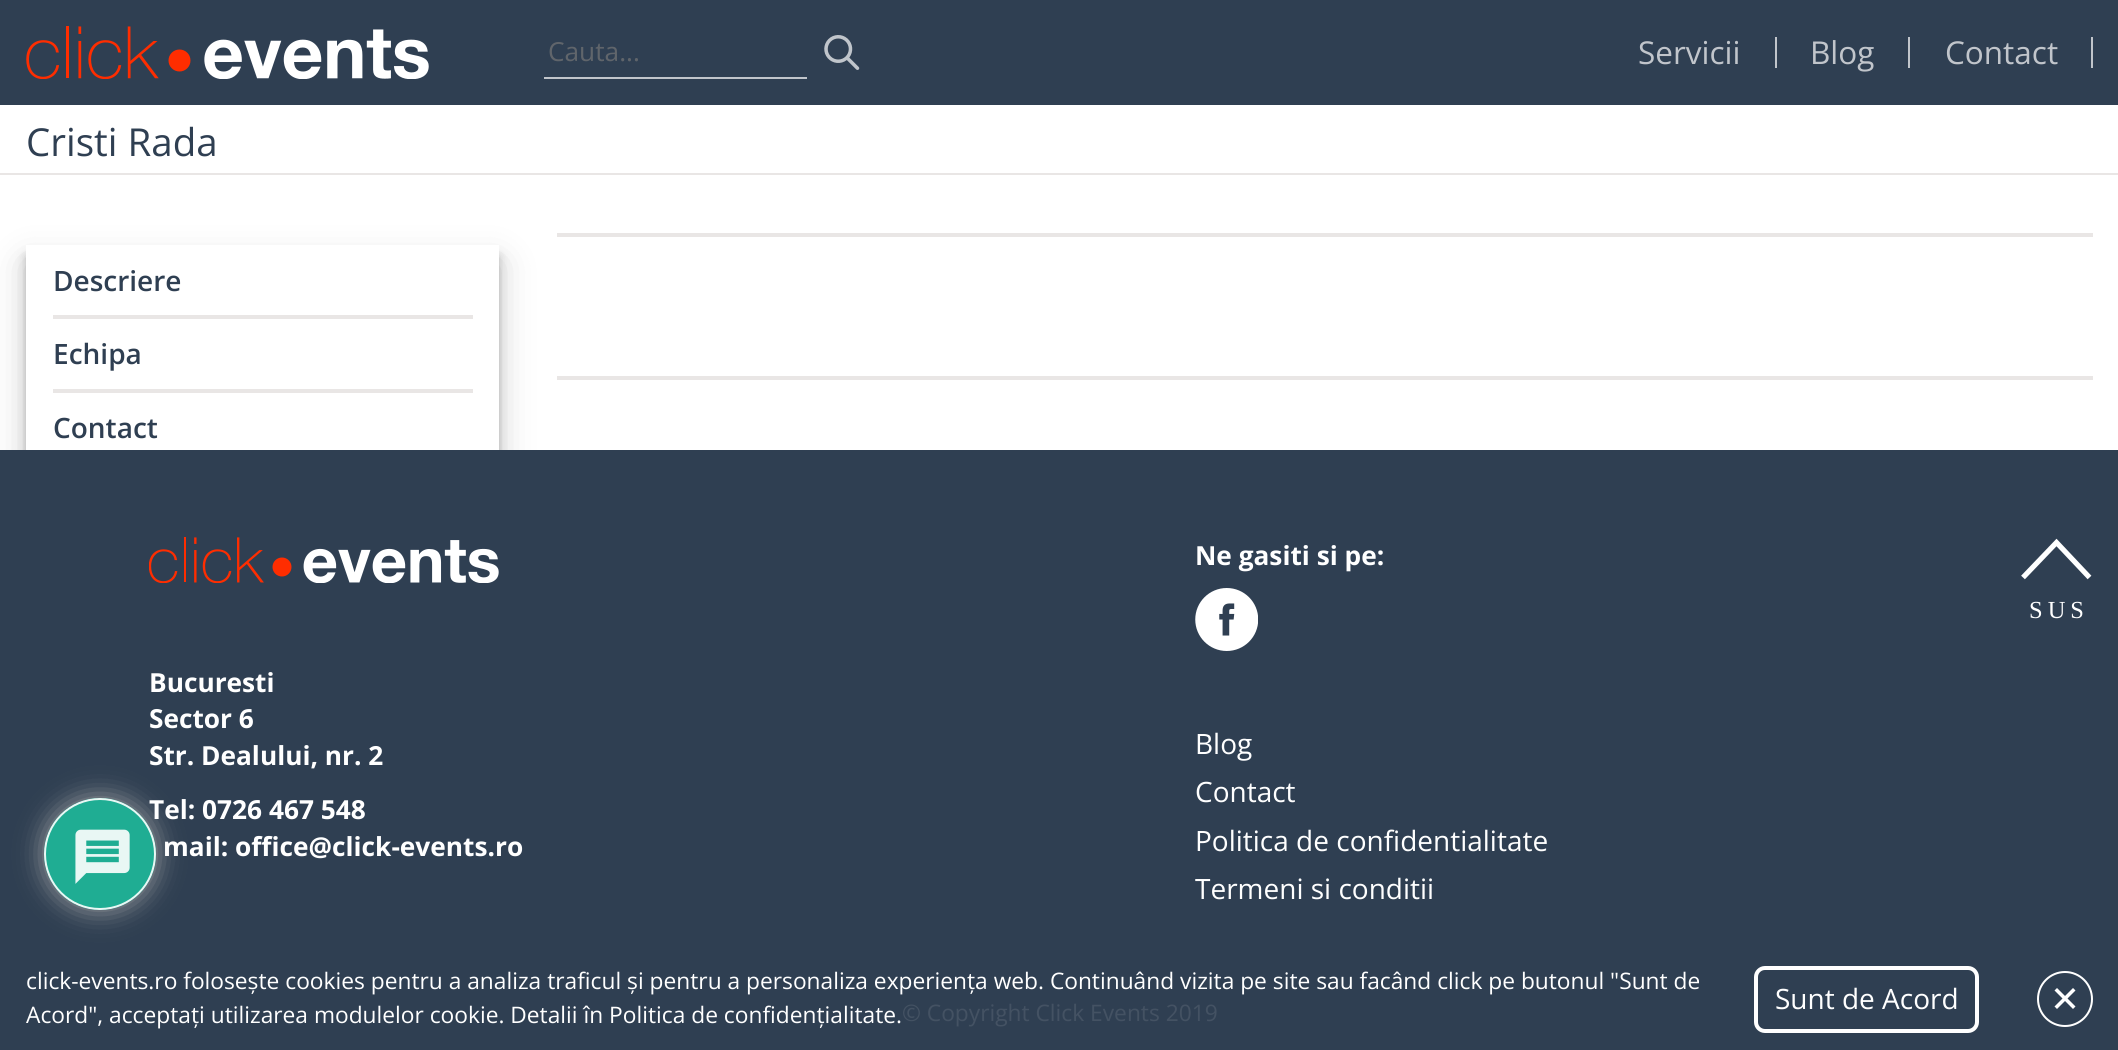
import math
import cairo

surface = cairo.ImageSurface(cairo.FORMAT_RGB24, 2118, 1050)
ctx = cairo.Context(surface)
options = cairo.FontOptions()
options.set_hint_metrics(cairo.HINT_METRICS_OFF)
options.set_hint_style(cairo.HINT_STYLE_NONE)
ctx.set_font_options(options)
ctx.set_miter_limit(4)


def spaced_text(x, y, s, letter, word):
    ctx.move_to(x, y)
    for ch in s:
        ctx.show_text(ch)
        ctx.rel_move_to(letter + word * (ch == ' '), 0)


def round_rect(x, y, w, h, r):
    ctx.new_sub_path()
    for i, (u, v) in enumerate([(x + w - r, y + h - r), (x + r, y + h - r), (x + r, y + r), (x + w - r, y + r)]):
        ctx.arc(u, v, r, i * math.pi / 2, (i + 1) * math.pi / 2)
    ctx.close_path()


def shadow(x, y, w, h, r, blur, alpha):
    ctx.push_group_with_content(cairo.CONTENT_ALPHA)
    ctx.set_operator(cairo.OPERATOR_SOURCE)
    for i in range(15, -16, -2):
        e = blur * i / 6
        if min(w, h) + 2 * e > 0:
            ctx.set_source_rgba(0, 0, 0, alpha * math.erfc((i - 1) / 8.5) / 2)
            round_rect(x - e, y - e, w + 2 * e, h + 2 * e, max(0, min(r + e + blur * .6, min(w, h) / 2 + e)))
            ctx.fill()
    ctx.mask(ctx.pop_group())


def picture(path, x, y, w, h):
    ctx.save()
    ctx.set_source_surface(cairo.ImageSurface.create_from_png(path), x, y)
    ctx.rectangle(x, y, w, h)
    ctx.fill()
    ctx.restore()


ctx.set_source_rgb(1, 1, 1)
ctx.paint()
ctx.set_source_rgb(0.184, 0.247, 0.322)
ctx.rectangle(0, 0, 2118, 105)
ctx.fill()
picture("img1.png", 26, 26, 403, 53)
ctx.set_source_rgb(0.757, 0.773, 0.796)
ctx.rectangle(544, 77, 263, 2)
ctx.fill()
ctx.select_font_face("Open Sans")
ctx.set_font_size(26.25)
ctx.set_source_rgb(0.376, 0.396, 0.42)
ctx.move_to(548, 61)
ctx.show_text("Cauta...")
picture("img2.png", 824, 35, 36, 35)
ctx.set_font_size(31.5)
ctx.set_source_rgb(0.757, 0.773, 0.796)
ctx.move_to(1638, 64)
ctx.show_text("Servicii")
ctx.rectangle(1775, 37, 2, 31)
ctx.fill()
ctx.move_to(1810, 64)
ctx.show_text("Blog")
ctx.rectangle(1908, 37, 2, 31)
ctx.fill()
ctx.move_to(1945, 64)
ctx.show_text("Contact")
ctx.rectangle(2091, 37, 2, 31)
ctx.fill()
ctx.set_source_rgb(0.914, 0.902, 0.898)
ctx.rectangle(0, 173, 2118, 2)
ctx.fill()
ctx.set_font_size(38.5)
ctx.set_source_rgb(0.184, 0.247, 0.322)
ctx.move_to(26, 156)
ctx.show_text("Cristi Rada")
ctx.save()
ctx.set_fill_rule(cairo.FILL_RULE_EVEN_ODD)
ctx.new_path()
ctx.move_to(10, 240)
ctx.line_to(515, 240)
ctx.line_to(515, 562)
ctx.line_to(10, 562)
ctx.close_path()
ctx.move_to(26, 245)
ctx.line_to(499, 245)
ctx.line_to(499, 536)
ctx.line_to(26, 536)
ctx.close_path()
ctx.clip()
ctx.set_source_rgb(0, 0, 0)
shadow(26, 256, 473, 290, 0, 5, 0.23)
ctx.restore()
ctx.save()
ctx.set_fill_rule(cairo.FILL_RULE_EVEN_ODD)
ctx.new_path()
ctx.move_to(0, 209)
ctx.line_to(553, 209)
ctx.line_to(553, 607)
ctx.line_to(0, 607)
ctx.close_path()
ctx.move_to(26, 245)
ctx.line_to(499, 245)
ctx.line_to(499, 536)
ctx.line_to(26, 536)
ctx.close_path()
ctx.clip()
ctx.set_source_rgb(0, 0, 0)
shadow(26, 263, 473, 290, 0, 17.5, 0.19)
ctx.restore()
ctx.set_source_rgb(0.914, 0.902, 0.898)
ctx.rectangle(53, 315, 420, 4)
ctx.fill()
ctx.select_font_face("Open Sans SemiBold")
ctx.set_font_size(28)
ctx.set_source_rgb(0.184, 0.247, 0.322)
ctx.move_to(53, 291)
ctx.show_text("Descriere")
ctx.set_source_rgb(0.914, 0.902, 0.898)
ctx.rectangle(53, 389, 420, 4)
ctx.fill()
ctx.set_source_rgb(0.184, 0.247, 0.322)
ctx.move_to(53, 364)
ctx.show_text("Echipa")
ctx.move_to(53, 438)
ctx.show_text("Contact")
ctx.set_source_rgb(0.914, 0.902, 0.898)
ctx.rectangle(557, 376, 1536, 4)
ctx.fill()
ctx.rectangle(557, 233, 1536, 4)
ctx.fill()
ctx.set_source_rgb(0.184, 0.247, 0.322)
ctx.rectangle(0, 450, 2118, 600)
ctx.fill()
ctx.save()
ctx.set_fill_rule(cairo.FILL_RULE_EVEN_ODD)
ctx.new_path()
ctx.move_to(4, 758)
ctx.line_to(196, 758)
ctx.line_to(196, 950)
ctx.line_to(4, 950)
ctx.close_path()
ctx.move_to(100, 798)
ctx.curve_to(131, 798, 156, 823, 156, 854)
ctx.curve_to(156, 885, 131, 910, 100, 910)
ctx.curve_to(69, 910, 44, 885, 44, 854)
ctx.curve_to(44, 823, 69, 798, 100, 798)
ctx.close_path()
ctx.clip()
ctx.set_source_rgb(0.667, 0.667, 0.667)
shadow(44, 798, 112, 112, 56, 13, 0.9)
ctx.restore()
ctx.select_font_face("Open Sans", cairo.FONT_SLANT_NORMAL, cairo.FONT_WEIGHT_BOLD)
ctx.set_font_size(26.25)
ctx.set_source_rgb(1, 1, 1)
ctx.move_to(149, 819)
ctx.show_text("Tel: 0726 467 548")
ctx.set_source_rgba(0.114, 0.725, 0.604, 0.9)
ctx.new_path()
ctx.arc(100, 854, 56, 0, 2 * math.pi)
ctx.fill()
ctx.arc(100, 854, 55, 0, 2 * math.pi)
ctx.set_source_rgba(1, 1, 1, 0.9)
ctx.stroke()
picture("img3.png", 75, 829, 55, 55)
picture("img4.png", 149, 537, 350, 46)
ctx.set_source_rgb(1, 1, 1)
ctx.move_to(149, 692)
ctx.show_text("Bucuresti")
ctx.move_to(149, 728)
ctx.show_text("Sector 6")
ctx.move_to(149, 765)
ctx.show_text("Str. Dealului, nr. 2")
ctx.move_to(163, 856)
ctx.show_text("mail: office@click-events.ro")
ctx.move_to(1195, 565)
ctx.show_text("Ne gasiti si pe:")
picture("img5.png", 1195, 588, 63, 63)
ctx.select_font_face("Open Sans")
ctx.set_font_size(28)
ctx.move_to(1195, 754)
ctx.show_text("Blog")
ctx.move_to(1195, 802)
ctx.show_text("Contact")
ctx.move_to(1195, 851)
ctx.show_text("Politica de confidentialitate")
ctx.move_to(1195, 899)
ctx.show_text("Termeni si conditii")
ctx.set_font_size(22.75)
ctx.set_source_rgb(0.267, 0.322, 0.388)
ctx.move_to(902, 1021)
ctx.show_text("© Copyright Click Events 2019")
ctx.select_font_face("Liberation Serif")
ctx.set_font_size(24.5)
ctx.set_source_rgb(1, 1, 1)
spaced_text(2029, 618, "SUS", 5, 0)
ctx.new_path()
ctx.move_to(2089.5, 577.5)
ctx.line_to(2056.5, 542.5)
ctx.line_to(2023, 577.5)
ctx.set_line_width(5.2)
ctx.stroke()
ctx.select_font_face("Open Sans")
ctx.set_font_size(22.75)
ctx.move_to(26, 989)
ctx.show_text("click-events.ro folosește cookies pentru a analiza traficul și pentru a personaliza experiența web. Continuând vizita pe site sau facând click pe butonul \"Sunt de")
ctx.move_to(26, 1023)
ctx.show_text("Acord\", acceptați utilizarea modulelor cookie. Detalii în Politica de confidențialitate.")
round_rect(1756, 968, 221, 63, 9)
ctx.set_line_width(4)
ctx.stroke()
ctx.set_font_size(28)
ctx.move_to(1775, 1009)
ctx.show_text("Sunt de Acord")
ctx.new_path()
ctx.arc(2065, 999, 27, 0, 2 * math.pi)
ctx.set_line_width(2)
ctx.stroke()
ctx.new_path()
ctx.move_to(2073, 988)
ctx.line_to(2075.5, 990.5)
ctx.line_to(2057, 1009)
ctx.line_to(2054.5, 1006.5)
ctx.close_path()
ctx.fill()
ctx.new_path()
ctx.move_to(2054.5, 990.5)
ctx.line_to(2057, 988)
ctx.line_to(2075.5, 1006.5)
ctx.line_to(2073, 1009)
ctx.close_path()
ctx.fill()
surface.write_to_png("page.png")
